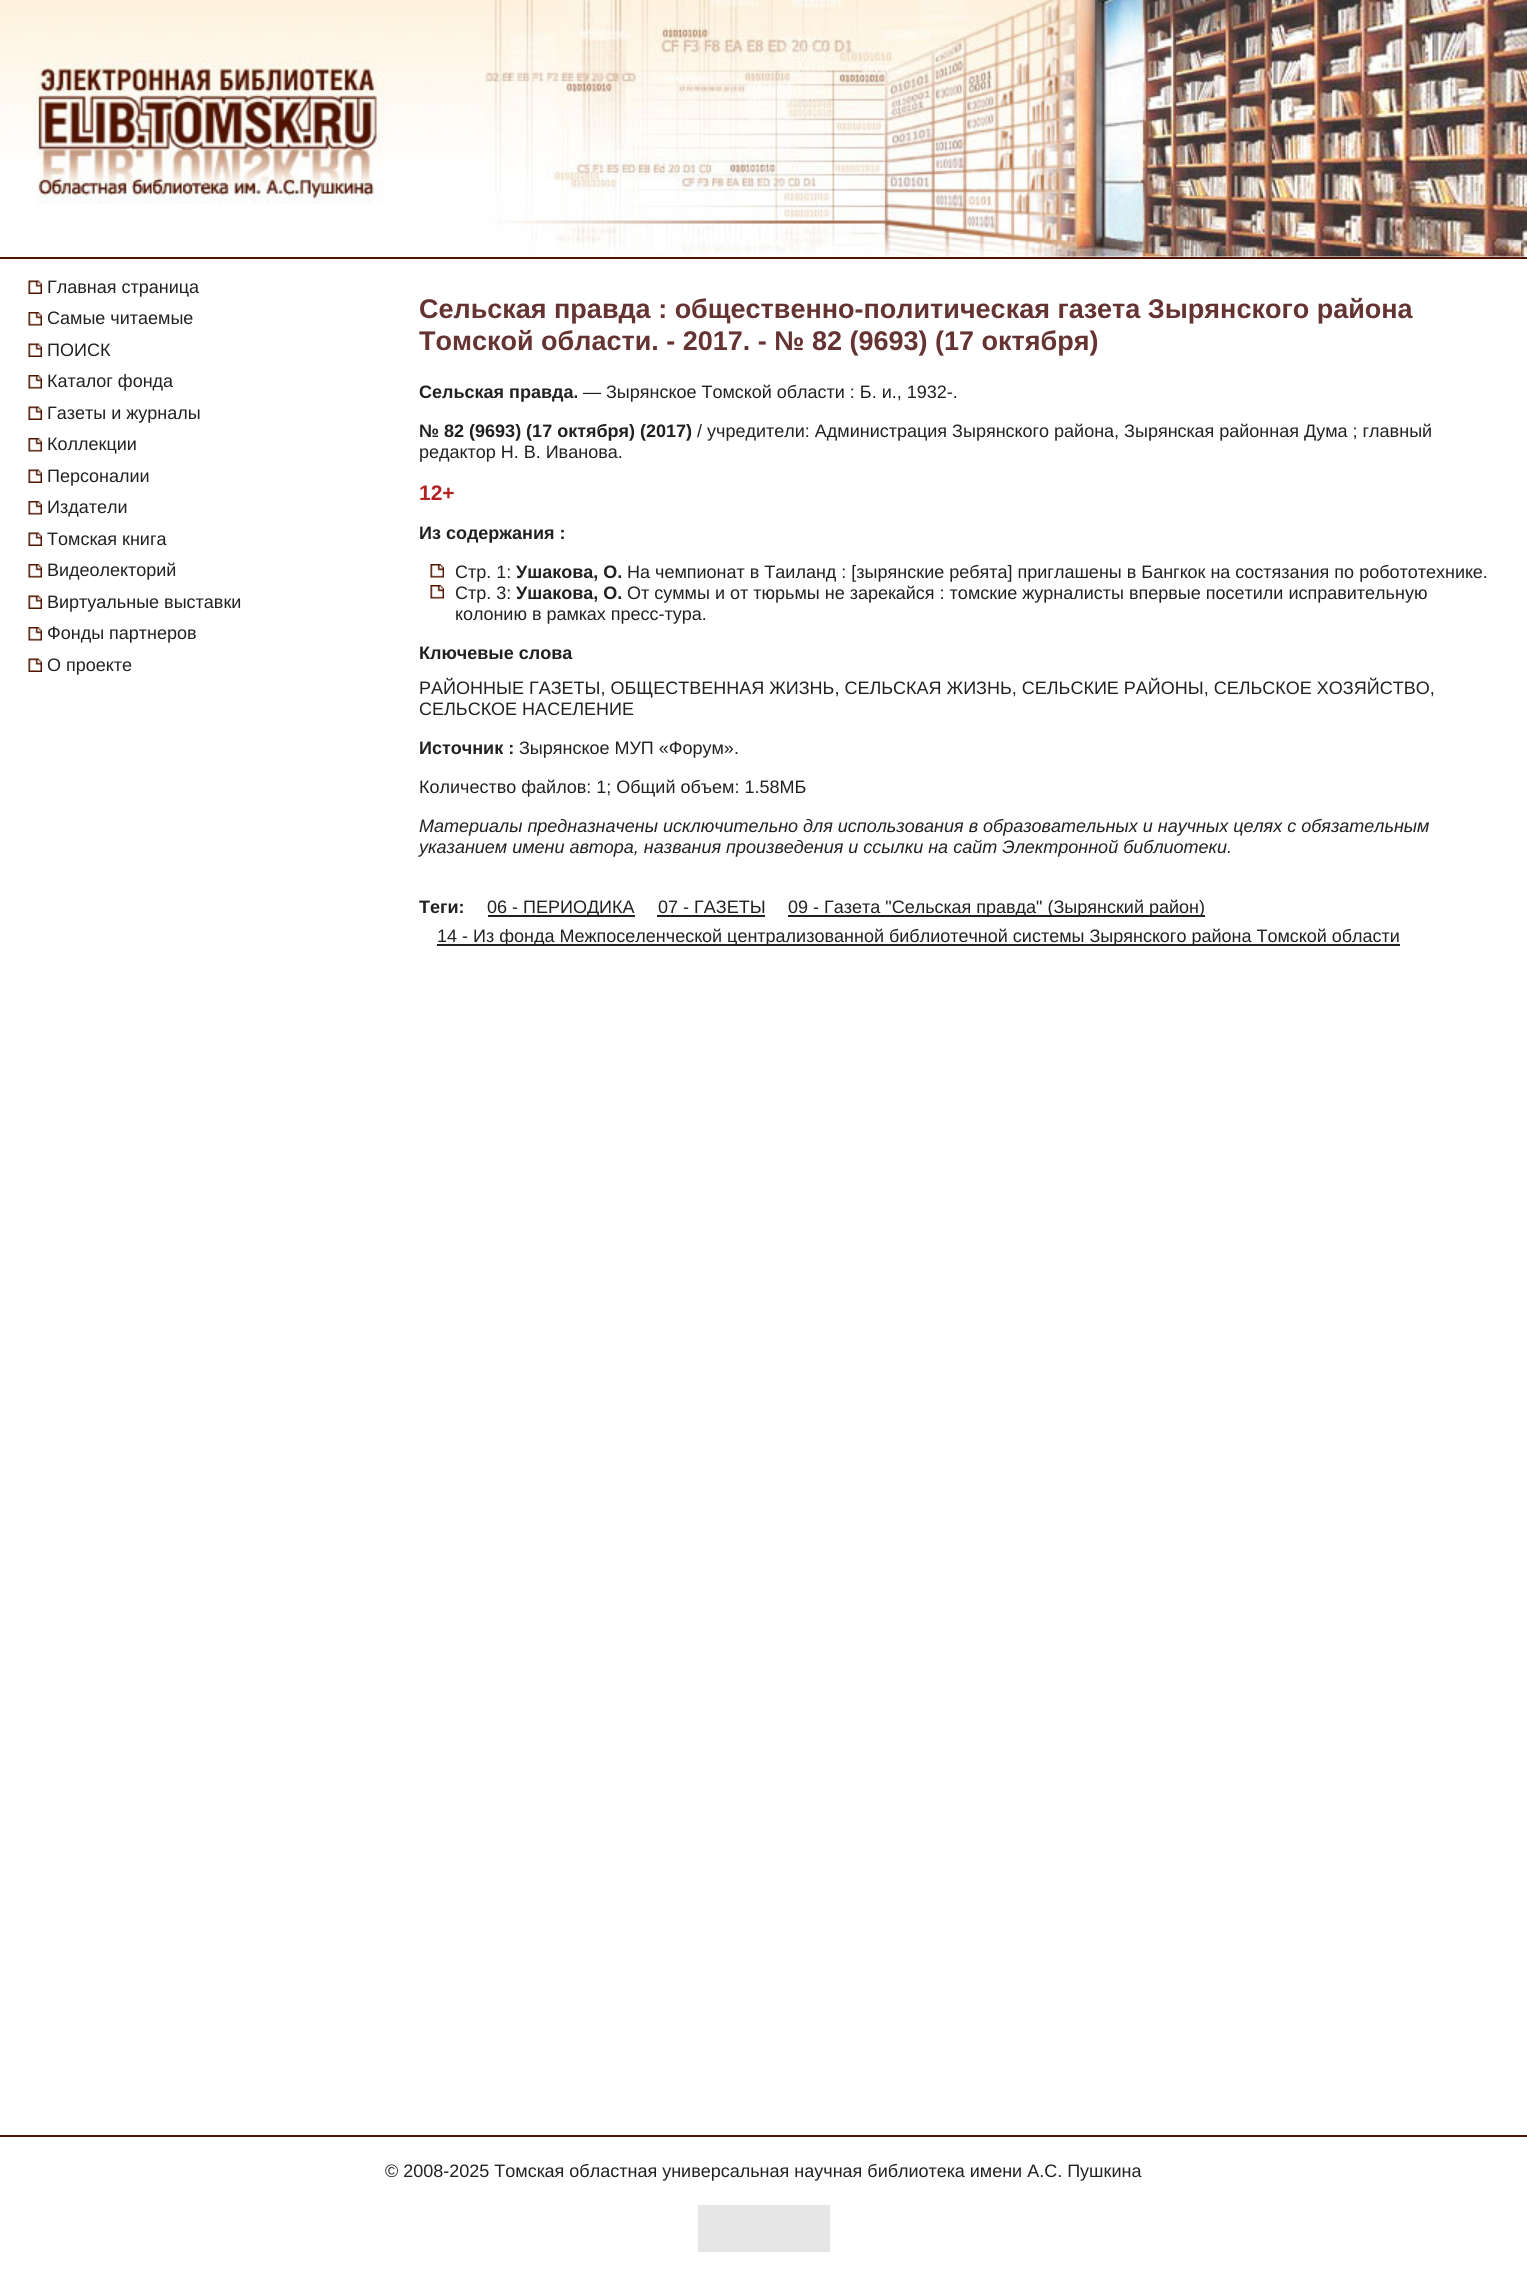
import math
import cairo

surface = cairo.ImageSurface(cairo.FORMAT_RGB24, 1527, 2269)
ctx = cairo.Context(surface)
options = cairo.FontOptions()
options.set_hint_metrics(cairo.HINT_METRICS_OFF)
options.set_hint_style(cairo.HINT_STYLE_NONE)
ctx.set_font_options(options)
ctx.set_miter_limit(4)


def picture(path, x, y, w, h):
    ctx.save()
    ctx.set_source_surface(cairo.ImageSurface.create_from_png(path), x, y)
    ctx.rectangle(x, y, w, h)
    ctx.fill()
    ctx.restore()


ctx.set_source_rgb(1, 1, 1)
ctx.paint()
picture("img1.png", 0, 0, 485, 159)
ctx.set_source_rgb(0.318, 0.075, 0.016)
ctx.rectangle(0, 257, 1527, 2)
ctx.fill()
picture("img2.png", 36, 60, 348, 144)
picture("img3.png", 485, 0, 1042, 257)
picture("img4.png", 28, 280, 14, 14)
ctx.select_font_face("Liberation Sans")
ctx.set_font_size(18)
ctx.set_source_rgb(0.129, 0.129, 0.129)
ctx.move_to(47, 293)
ctx.show_text("Главная страница")
picture("img5.png", 28, 312, 14, 14)
ctx.move_to(47, 324)
ctx.show_text("Самые читаемые")
picture("img4.png", 28, 343, 14, 14)
ctx.move_to(47, 356)
ctx.show_text("ПОИСК")
picture("img5.png", 28, 375, 14, 14)
ctx.move_to(47, 387)
ctx.show_text("Каталог фонда")
picture("img4.png", 28, 406, 14, 14)
ctx.move_to(47, 419)
ctx.show_text("Газеты и журналы")
picture("img5.png", 28, 438, 14, 14)
ctx.move_to(47, 450)
ctx.show_text("Коллекции")
picture("img4.png", 28, 469, 14, 14)
ctx.move_to(47, 482)
ctx.show_text("Персоналии")
picture("img5.png", 28, 501, 14, 14)
ctx.move_to(47, 513)
ctx.show_text("Издатели")
picture("img4.png", 28, 532, 14, 14)
ctx.move_to(47, 545)
ctx.show_text("Томская книга")
picture("img5.png", 28, 564, 14, 14)
ctx.move_to(47, 576)
ctx.show_text("Видеолекторий")
picture("img4.png", 28, 595, 14, 14)
ctx.move_to(47, 608)
ctx.show_text("Виртуальные выставки")
picture("img5.png", 28, 627, 14, 14)
ctx.move_to(47, 639)
ctx.show_text("Фонды партнеров")
picture("img4.png", 28, 658, 14, 14)
ctx.move_to(47, 671)
ctx.show_text("О проекте")
ctx.select_font_face("Liberation Sans", cairo.FONT_SLANT_NORMAL, cairo.FONT_WEIGHT_BOLD)
ctx.set_font_size(27)
ctx.set_source_rgb(0.4, 0.2, 0.2)
ctx.move_to(419, 318)
ctx.show_text("Сельская правда : общественно-политическая газета Зырянского района")
ctx.move_to(419, 350)
ctx.show_text("Томской области. - 2017. - № 82 (9693) (17 октября)")
ctx.set_font_size(18)
ctx.set_source_rgb(0.129, 0.129, 0.129)
ctx.move_to(419, 398)
ctx.show_text("Сельская правда.")
ctx.select_font_face("Liberation Sans")
ctx.move_to(583, 398)
ctx.show_text("— Зырянское Томской области : Б. и., 1932-.")
ctx.select_font_face("Liberation Sans", cairo.FONT_SLANT_NORMAL, cairo.FONT_WEIGHT_BOLD)
ctx.move_to(419, 437)
ctx.show_text("№ 82 (9693) (17 октября) (2017)")
ctx.select_font_face("Liberation Sans")
ctx.move_to(697, 437)
ctx.show_text("/ учредители: Администрация Зырянского района, Зырянская районная Дума ; главный")
ctx.move_to(419, 458)
ctx.show_text("редактор Н. В. Иванова.")
ctx.select_font_face("Liberation Sans", cairo.FONT_SLANT_NORMAL, cairo.FONT_WEIGHT_BOLD)
ctx.set_font_size(21)
ctx.set_source_rgb(0.698, 0.133, 0.133)
ctx.move_to(419, 500)
ctx.show_text("12+")
ctx.set_font_size(18)
ctx.set_source_rgb(0.129, 0.129, 0.129)
ctx.move_to(419, 539)
ctx.show_text("Из содержания :")
picture("img6.png", 430, 564, 14, 14)
ctx.select_font_face("Liberation Sans")
ctx.move_to(455, 578)
ctx.show_text("Стр. 1:")
ctx.select_font_face("Liberation Sans", cairo.FONT_SLANT_NORMAL, cairo.FONT_WEIGHT_BOLD)
ctx.move_to(516, 578)
ctx.show_text("Ушакова, О.")
ctx.select_font_face("Liberation Sans")
ctx.move_to(627, 578)
ctx.show_text("На чемпионат в Таиланд : [зырянские ребята] приглашены в Бангкок на состязания по робототехнике.")
picture("img6.png", 430, 585, 14, 14)
ctx.move_to(455, 599)
ctx.show_text("Стр. 3:")
ctx.select_font_face("Liberation Sans", cairo.FONT_SLANT_NORMAL, cairo.FONT_WEIGHT_BOLD)
ctx.move_to(516, 599)
ctx.show_text("Ушакова, О.")
ctx.select_font_face("Liberation Sans")
ctx.move_to(627, 599)
ctx.show_text("От суммы и от тюрьмы не зарекайся : томские журналисты впервые посетили исправительную")
ctx.move_to(455, 620)
ctx.show_text("колонию в рамках пресс-тура.")
ctx.select_font_face("Liberation Sans", cairo.FONT_SLANT_NORMAL, cairo.FONT_WEIGHT_BOLD)
ctx.move_to(419, 659)
ctx.show_text("Ключевые слова")
ctx.select_font_face("Liberation Sans")
ctx.move_to(419, 694)
ctx.show_text("РАЙОННЫЕ ГАЗЕТЫ, ОБЩЕСТВЕННАЯ ЖИЗНЬ, СЕЛЬСКАЯ ЖИЗНЬ, СЕЛЬСКИЕ РАЙОНЫ, СЕЛЬСКОЕ ХОЗЯЙСТВО,")
ctx.move_to(419, 715)
ctx.show_text("СЕЛЬСКОЕ НАСЕЛЕНИЕ")
ctx.select_font_face("Liberation Sans", cairo.FONT_SLANT_NORMAL, cairo.FONT_WEIGHT_BOLD)
ctx.move_to(419, 754)
ctx.show_text("Источник :")
ctx.select_font_face("Liberation Sans")
ctx.move_to(519, 754)
ctx.show_text("Зырянское МУП «Форум».")
ctx.move_to(419, 793)
ctx.show_text("Количество файлов: 1; Общий объем: 1.58МБ")
ctx.select_font_face("Liberation Sans", cairo.FONT_SLANT_ITALIC)
ctx.move_to(419, 832)
ctx.show_text("Материалы предназначены исключительно для использования в образовательных и научных целях с обязательным")
ctx.move_to(419, 853)
ctx.show_text("указанием имени автора, названия произведения и ссылки на сайт Электронной библиотеки.")
ctx.select_font_face("Liberation Sans", cairo.FONT_SLANT_NORMAL, cairo.FONT_WEIGHT_BOLD)
ctx.move_to(419, 913)
ctx.show_text("Теги:")
ctx.rectangle(488, 915, 147, 2)
ctx.fill()
ctx.select_font_face("Liberation Sans")
ctx.move_to(487, 913)
ctx.show_text("06 - ПЕРИОДИКА")
ctx.move_to(658, 913)
ctx.show_text("07 - ГАЗЕТЫ")
ctx.rectangle(657, 915, 108, 2)
ctx.fill()
ctx.rectangle(788, 915, 417, 2)
ctx.fill()
ctx.move_to(788, 913)
ctx.show_text("09 - Газета \"Сельская правда\" (Зырянский район)")
ctx.rectangle(437, 944, 963, 2)
ctx.fill()
ctx.move_to(437, 942)
ctx.show_text("14 - Из фонда Межпоселенческой централизованной библиотечной системы Зырянского района Томской области")
ctx.set_source_rgb(0.318, 0.075, 0.016)
ctx.rectangle(0, 2135, 1527, 2)
ctx.fill()
ctx.set_source_rgb(0.129, 0.129, 0.129)
ctx.move_to(385, 2177)
ctx.show_text("© 2008-2025 Томская областная универсальная научная библиотека имени А.С. Пушкина")
ctx.set_source_rgb(0.902, 0.902, 0.902)
ctx.rectangle(698, 2205, 132, 47)
ctx.fill()
surface.write_to_png("page.png")
